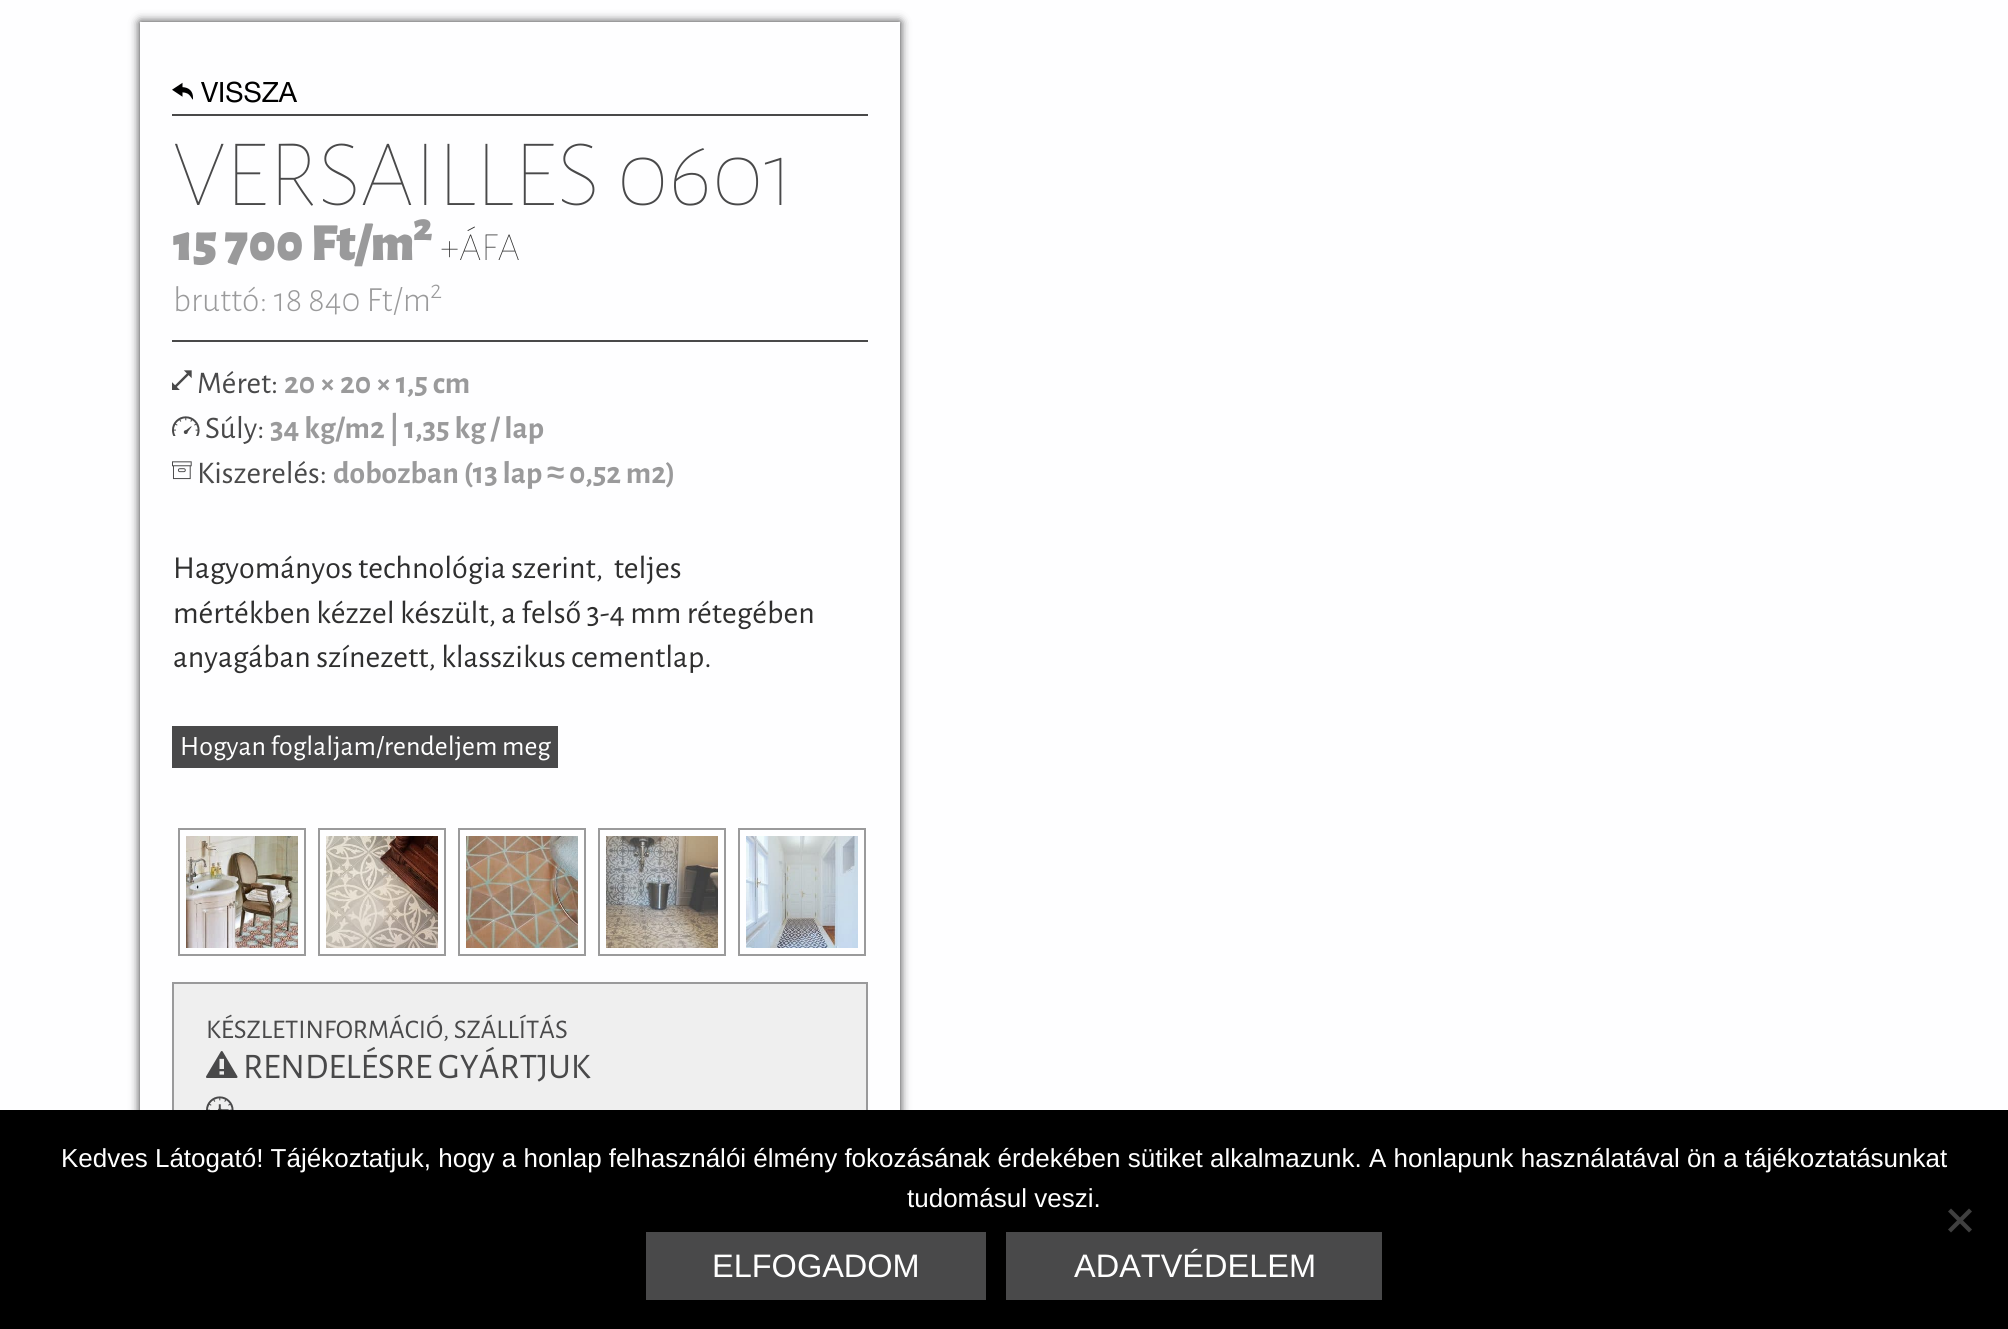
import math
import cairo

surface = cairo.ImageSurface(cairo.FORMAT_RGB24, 2008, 1329)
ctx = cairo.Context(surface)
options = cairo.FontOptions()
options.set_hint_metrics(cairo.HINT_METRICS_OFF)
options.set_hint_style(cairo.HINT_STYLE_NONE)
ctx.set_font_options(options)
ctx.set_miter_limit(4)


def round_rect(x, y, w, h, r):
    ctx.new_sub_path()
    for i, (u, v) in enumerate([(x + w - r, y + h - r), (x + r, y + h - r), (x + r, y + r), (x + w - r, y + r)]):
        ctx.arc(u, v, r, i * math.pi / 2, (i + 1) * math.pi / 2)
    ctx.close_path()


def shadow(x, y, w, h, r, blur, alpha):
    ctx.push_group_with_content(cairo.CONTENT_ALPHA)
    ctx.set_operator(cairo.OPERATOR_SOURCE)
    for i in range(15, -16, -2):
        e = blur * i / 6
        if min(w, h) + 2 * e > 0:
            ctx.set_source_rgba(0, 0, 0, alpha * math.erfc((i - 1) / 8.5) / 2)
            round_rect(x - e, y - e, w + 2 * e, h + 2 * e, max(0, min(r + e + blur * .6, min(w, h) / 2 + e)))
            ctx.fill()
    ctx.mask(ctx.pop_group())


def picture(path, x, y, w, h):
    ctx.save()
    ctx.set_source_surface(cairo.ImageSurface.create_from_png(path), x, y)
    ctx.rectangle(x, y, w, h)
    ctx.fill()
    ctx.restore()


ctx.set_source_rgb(0.996, 0.996, 1)
ctx.paint()
ctx.save()
ctx.set_fill_rule(cairo.FILL_RULE_EVEN_ODD)
ctx.new_path()
ctx.move_to(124, 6)
ctx.line_to(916, 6)
ctx.line_to(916, 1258)
ctx.line_to(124, 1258)
ctx.close_path()
ctx.move_to(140, 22)
ctx.line_to(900, 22)
ctx.line_to(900, 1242)
ctx.line_to(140, 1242)
ctx.close_path()
ctx.clip()
ctx.set_source_rgb(0.184, 0.184, 0.184)
shadow(140, 22, 760, 1220, 0, 5, 1)
ctx.restore()
picture("img1.png", 172, 82, 21, 18)
ctx.select_font_face("Helvetica Neue")
ctx.set_font_size(28)
ctx.set_source_rgb(0, 0, 0)
ctx.move_to(201, 102)
ctx.show_text("VISSZA")
ctx.set_source_rgb(0.286, 0.286, 0.29)
ctx.rectangle(172, 114, 696, 2)
ctx.fill()
ctx.select_font_face("Alegreya Sans Thin")
ctx.set_font_size(96)
ctx.move_to(173, 205)
ctx.show_text("VERSAILLES 0601")
ctx.rectangle(172, 340, 696, 2)
ctx.fill()
ctx.select_font_face("Alegreya Sans Black")
ctx.set_font_size(53.5)
ctx.set_source_rgb(0.604, 0.604, 0.608)
ctx.move_to(173, 260)
ctx.show_text("15 700 Ft/m")
ctx.set_font_size(40)
ctx.move_to(413, 240)
ctx.show_text("2")
ctx.select_font_face("Alegreya Sans Thin")
ctx.set_source_rgb(0.184, 0.184, 0.184)
ctx.move_to(440, 260)
ctx.show_text("+ÁFA")
ctx.select_font_face("Alegreya Sans Light")
ctx.set_font_size(35.5)
ctx.set_source_rgb(0.604, 0.604, 0.608)
ctx.move_to(173, 311)
ctx.show_text("bruttó: 18 840 Ft/m")
ctx.set_font_size(27)
ctx.move_to(430, 298)
ctx.show_text("2")
picture("img2.png", 172, 370, 20, 20)
ctx.select_font_face("Alegreya Sans")
ctx.set_font_size(31.5)
ctx.set_source_rgb(0.286, 0.286, 0.29)
ctx.move_to(197, 393)
ctx.show_text("Méret:")
ctx.select_font_face("Alegreya Sans", cairo.FONT_SLANT_NORMAL, cairo.FONT_WEIGHT_BOLD)
ctx.set_source_rgb(0.604, 0.604, 0.608)
ctx.move_to(284, 393)
ctx.show_text("20 × 20 × 1,5 cm")
picture("img3.png", 172, 416, 28, 20)
ctx.select_font_face("Alegreya Sans")
ctx.set_source_rgb(0.286, 0.286, 0.29)
ctx.move_to(205, 438)
ctx.show_text("Súly:")
ctx.select_font_face("Alegreya Sans", cairo.FONT_SLANT_NORMAL, cairo.FONT_WEIGHT_BOLD)
ctx.set_source_rgb(0.604, 0.604, 0.608)
ctx.move_to(270, 438)
ctx.show_text("34 kg/m2 | 1,35 kg / lap")
picture("img4.png", 172, 461, 20, 19)
ctx.select_font_face("Alegreya Sans")
ctx.set_source_rgb(0.286, 0.286, 0.29)
ctx.move_to(197, 483)
ctx.show_text("Kiszerelés:")
ctx.select_font_face("Alegreya Sans", cairo.FONT_SLANT_NORMAL, cairo.FONT_WEIGHT_BOLD)
ctx.set_source_rgb(0.604, 0.604, 0.608)
ctx.move_to(333, 483)
ctx.show_text("dobozban (13 lap")
ctx.select_font_face("Liberation Sans", cairo.FONT_SLANT_NORMAL, cairo.FONT_WEIGHT_BOLD)
ctx.move_to(547, 483)
ctx.show_text("≈")
ctx.select_font_face("Alegreya Sans", cairo.FONT_SLANT_NORMAL, cairo.FONT_WEIGHT_BOLD)
ctx.move_to(569, 483)
ctx.show_text("0,52 m2)")
ctx.select_font_face("Alegreya Sans")
ctx.set_font_size(32)
ctx.set_source_rgb(0.184, 0.184, 0.184)
ctx.move_to(173, 578)
ctx.show_text("Hagyományos technológia szerint,  teljes")
ctx.move_to(173, 623)
ctx.show_text("mértékben kézzel készült, a felső 3-4 mm rétegében")
ctx.move_to(173, 667)
ctx.show_text("anyagában színezett, klasszikus cementlap.")
ctx.set_source_rgb(0.286, 0.286, 0.29)
ctx.rectangle(172, 726, 386, 42)
ctx.fill()
ctx.set_font_size(28)
ctx.set_source_rgb(1, 1, 1)
ctx.move_to(180, 755)
ctx.show_text("Hogyan foglaljam/rendeljem meg")
ctx.rectangle(179, 829, 126, 126)
ctx.set_source_rgb(0.604, 0.604, 0.608)
ctx.stroke()
picture("img5.png", 186, 836, 112, 112)
ctx.rectangle(319, 829, 126, 126)
ctx.stroke()
picture("img6.png", 326, 836, 112, 112)
ctx.rectangle(459, 829, 126, 126)
ctx.stroke()
picture("img7.png", 466, 836, 112, 112)
ctx.rectangle(599, 829, 126, 126)
ctx.stroke()
picture("img8.png", 606, 836, 112, 112)
ctx.rectangle(739, 829, 126, 126)
ctx.stroke()
picture("img9.png", 746, 836, 112, 112)
ctx.set_source_rgb(0.937, 0.937, 0.937)
ctx.rectangle(174, 984, 692, 126)
ctx.fill()
ctx.rectangle(173, 983, 694, 226)
ctx.set_source_rgb(0.604, 0.604, 0.608)
ctx.stroke()
ctx.set_font_size(27)
ctx.set_source_rgb(0.286, 0.286, 0.29)
ctx.move_to(206, 1038)
ctx.show_text("KÉSZLETINFORMÁCIÓ, SZÁLLÍTÁS")
picture("img10.png", 206, 1051, 32, 27)
ctx.set_font_size(36)
ctx.move_to(243, 1078)
ctx.show_text("RENDELÉSRE GYÁRTJUK")
picture("img11.png", 206, 1096, 28, 14)
ctx.set_source_rgb(0, 0, 0)
ctx.rectangle(0, 1110, 2008, 219)
ctx.fill()
ctx.select_font_face("Liberation Sans")
ctx.set_font_size(26)
ctx.set_source_rgb(1, 1, 1)
ctx.move_to(61, 1167)
ctx.show_text("Kedves Látogató! Tájékoztatjuk, hogy a honlap felhasználói élmény fokozásának érdekében sütiket alkalmazunk. A honlapunk használatával ön a tájékoztatásunkat")
ctx.move_to(907, 1207)
ctx.show_text("tudomásul veszi.")
ctx.set_source_rgb(0.251, 0.251, 0.251)
ctx.new_path()
ctx.move_to(1969, 1208.5)
ctx.line_to(1972, 1211.5)
ctx.line_to(1951, 1232.5)
ctx.line_to(1948, 1229.5)
ctx.close_path()
ctx.fill()
ctx.new_path()
ctx.move_to(1948, 1211.5)
ctx.line_to(1951, 1208.5)
ctx.line_to(1972, 1229.5)
ctx.line_to(1969, 1232.5)
ctx.close_path()
ctx.fill()
ctx.set_source_rgb(0.286, 0.286, 0.29)
ctx.rectangle(646, 1232, 340, 68)
ctx.fill()
ctx.set_font_size(32.5)
ctx.set_source_rgb(1, 1, 1)
ctx.move_to(712, 1277)
ctx.show_text("ELFOGADOM")
ctx.set_source_rgb(0.286, 0.286, 0.29)
ctx.rectangle(1006, 1232, 376, 68)
ctx.fill()
ctx.set_source_rgb(1, 1, 1)
ctx.move_to(1074, 1277)
ctx.show_text("ADATVÉDELEM")
surface.write_to_png("page.png")
